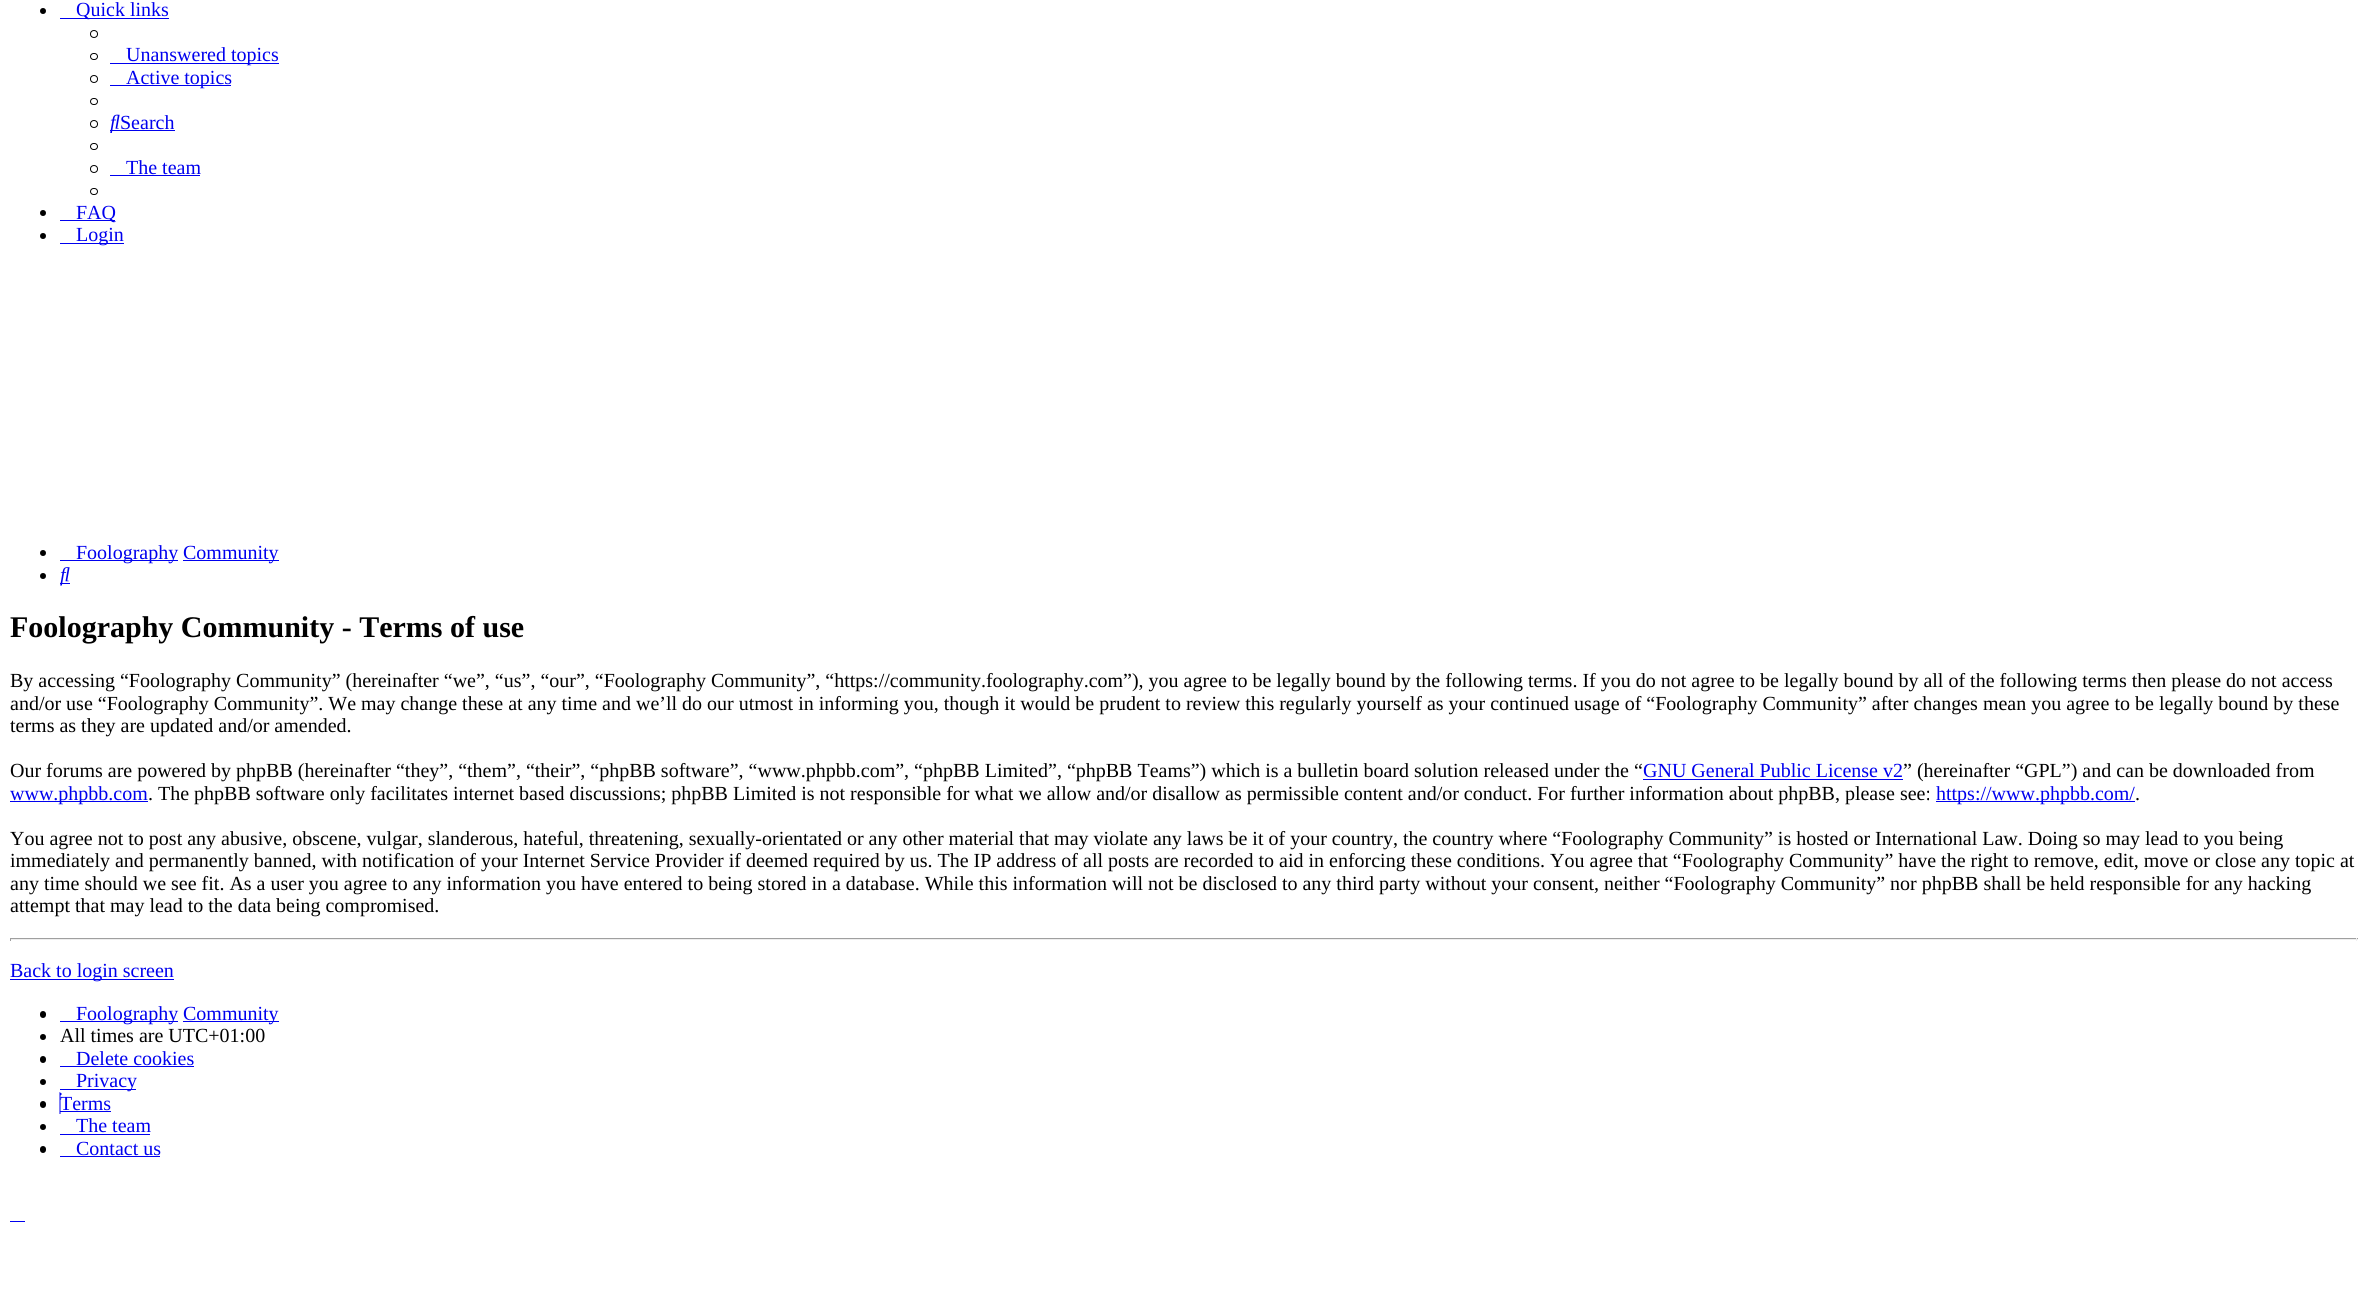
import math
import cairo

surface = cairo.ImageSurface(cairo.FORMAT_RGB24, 2367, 1297)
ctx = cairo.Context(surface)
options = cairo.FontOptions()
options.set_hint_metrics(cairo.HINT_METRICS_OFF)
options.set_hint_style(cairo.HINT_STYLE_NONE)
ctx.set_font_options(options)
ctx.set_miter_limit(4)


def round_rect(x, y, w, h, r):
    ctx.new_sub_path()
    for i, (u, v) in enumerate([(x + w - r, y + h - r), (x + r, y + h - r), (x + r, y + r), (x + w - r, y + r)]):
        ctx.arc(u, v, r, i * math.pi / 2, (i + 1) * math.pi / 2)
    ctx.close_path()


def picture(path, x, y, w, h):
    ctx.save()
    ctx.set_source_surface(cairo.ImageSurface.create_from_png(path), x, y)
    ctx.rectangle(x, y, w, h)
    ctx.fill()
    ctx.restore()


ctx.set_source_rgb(1, 1, 1)
ctx.paint()
ctx.set_source_rgb(0, 0, 0)
ctx.arc(43, 11, 3, 0, 2 * math.pi)
ctx.fill()
ctx.set_source_rgb(0, 0, 0.933)
ctx.rectangle(60, 18, 109, 1)
ctx.fill()
ctx.select_font_face("Liberation Serif")
ctx.set_font_size(20)
ctx.move_to(76, 16)
ctx.show_text("Quick links")
ctx.new_path()
ctx.arc(94, 34, 3.5, 0, 2 * math.pi)
ctx.set_source_rgb(0, 0, 0)
ctx.set_line_width(1)
ctx.stroke()
round_rect(90.5, 53.5, 7, 6, 3)
ctx.stroke()
ctx.set_source_rgb(0, 0, 0.933)
ctx.rectangle(110, 63, 169, 1)
ctx.fill()
ctx.move_to(126, 61)
ctx.show_text("Unanswered topics")
ctx.new_path()
ctx.arc(94, 79, 3.5, 0, 2 * math.pi)
ctx.set_source_rgb(0, 0, 0)
ctx.stroke()
ctx.set_source_rgb(0, 0, 0.933)
ctx.rectangle(110, 85, 121, 1)
ctx.fill()
ctx.move_to(126, 84)
ctx.show_text("Active topics")
round_rect(90.5, 98.5, 7, 6, 3)
ctx.set_source_rgb(0, 0, 0)
ctx.stroke()
ctx.arc(94, 124, 3.5, 0, 2 * math.pi)
ctx.stroke()
ctx.set_source_rgb(0, 0, 0.933)
ctx.rectangle(110, 130, 65, 1)
ctx.fill()
picture("img1.png", 110, 114, 10, 19)
ctx.move_to(120, 129)
ctx.show_text("Search")
round_rect(90.5, 143.5, 7, 6, 3)
ctx.set_source_rgb(0, 0, 0)
ctx.stroke()
ctx.arc(94, 169, 3.5, 0, 2 * math.pi)
ctx.stroke()
ctx.set_source_rgb(0, 0, 0.933)
ctx.move_to(126, 174)
ctx.show_text("The team")
ctx.rectangle(110, 175, 90, 1)
ctx.fill()
round_rect(90.5, 188.5, 7, 6, 3)
ctx.set_source_rgb(0, 0, 0)
ctx.stroke()
ctx.arc(43, 213, 3, 0, 2 * math.pi)
ctx.fill()
ctx.set_source_rgb(0, 0, 0.933)
ctx.rectangle(60, 220, 55, 1)
ctx.fill()
ctx.move_to(76, 219)
ctx.show_text("FAQ")
ctx.set_source_rgb(0, 0, 0)
ctx.new_path()
ctx.arc(43, 236, 3, 0, 2 * math.pi)
ctx.fill()
ctx.set_source_rgb(0, 0, 0.933)
ctx.rectangle(60, 243, 64, 1)
ctx.fill()
ctx.move_to(76, 241)
ctx.show_text("Login")
ctx.set_source_rgb(0, 0, 0)
ctx.new_path()
ctx.arc(43, 553, 3, 0, 2 * math.pi)
ctx.fill()
ctx.set_source_rgb(0, 0, 0.933)
ctx.rectangle(60, 560, 118, 1)
ctx.fill()
ctx.move_to(76, 559)
ctx.show_text("Foolography")
ctx.rectangle(183, 560, 96, 1)
ctx.fill()
ctx.move_to(183, 559)
ctx.show_text("Community")
ctx.set_source_rgb(0, 0, 0)
ctx.new_path()
ctx.arc(43, 576, 3, 0, 2 * math.pi)
ctx.fill()
ctx.set_source_rgb(0, 0, 0.933)
ctx.rectangle(60, 583, 10, 1)
ctx.fill()
picture("img2.png", 60, 567, 10, 19)
ctx.select_font_face("Liberation Serif", cairo.FONT_SLANT_NORMAL, cairo.FONT_WEIGHT_BOLD)
ctx.set_font_size(30)
ctx.set_source_rgb(0, 0, 0)
ctx.move_to(10, 637)
ctx.show_text("Foolography Community - Terms of use")
ctx.select_font_face("Liberation Serif")
ctx.set_font_size(20)
ctx.move_to(10, 687)
ctx.show_text("By accessing “Foolography Community” (hereinafter “we”, “us”, “our”, “Foolography Community”, “https://community.foolography.com”), you agree to be legally bound by the following terms. If you do not agree to be legally bound by all of the following terms then please do not access")
ctx.move_to(10, 710)
ctx.show_text("and/or use “Foolography Community”. We may change these at any time and we’ll do our utmost in informing you, though it would be prudent to review this regularly yourself as your continued usage of “Foolography Community” after changes mean you agree to be legally bound by these")
ctx.move_to(10, 732)
ctx.show_text("terms as they are updated and/or amended.")
ctx.move_to(10, 777)
ctx.show_text("Our forums are powered by phpBB (hereinafter “they”, “them”, “their”, “phpBB software”, “www.phpbb.com”, “phpBB Limited”, “phpBB Teams”) which is a bulletin board solution released under the “")
ctx.set_source_rgb(0, 0, 0.933)
ctx.move_to(1643, 777)
ctx.show_text("GNU General Public License v2")
ctx.rectangle(1643, 779, 260, 1)
ctx.fill()
ctx.set_source_rgb(0, 0, 0)
ctx.move_to(1903, 777)
ctx.show_text("” (hereinafter “GPL”) and can be downloaded from")
ctx.set_source_rgb(0, 0, 0.933)
ctx.rectangle(10, 801, 138, 1)
ctx.fill()
ctx.move_to(10, 800)
ctx.show_text("www.phpbb.com")
ctx.set_source_rgb(0, 0, 0)
ctx.move_to(148, 800)
ctx.show_text(". The phpBB software only facilitates internet based discussions; phpBB Limited is not responsible for what we allow and/or disallow as permissible content and/or conduct. For further information about phpBB, please see:")
ctx.set_source_rgb(0, 0, 0.933)
ctx.rectangle(1936, 801, 199, 1)
ctx.fill()
ctx.move_to(1936, 800)
ctx.show_text("https://www.phpbb.com/")
ctx.set_source_rgb(0, 0, 0)
ctx.move_to(2135, 800)
ctx.show_text(".")
ctx.move_to(10, 845)
ctx.show_text("You agree not to post any abusive, obscene, vulgar, slanderous, hateful, threatening, sexually-orientated or any other material that may violate any laws be it of your country, the country where “Foolography Community” is hosted or International Law. Doing so may lead to you being")
ctx.move_to(10, 867)
ctx.show_text("immediately and permanently banned, with notification of your Internet Service Provider if deemed required by us. The IP address of all posts are recorded to aid in enforcing these conditions. You agree that “Foolography Community” have the right to remove, edit, move or close any topic at")
ctx.move_to(10, 890)
ctx.show_text("any time should we see fit. As a user you agree to any information you have entered to being stored in a database. While this information will not be disclosed to any third party without your consent, neither “Foolography Community” nor phpBB shall be held responsible for any hacking")
ctx.move_to(10, 912)
ctx.show_text("attempt that may lead to the data being compromised.")
ctx.set_source_rgb(0.624, 0.624, 0.624)
ctx.rectangle(10, 938, 2348, 1)
ctx.fill()
ctx.set_source_rgb(0.933, 0.933, 0.933)
ctx.rectangle(2356, 938, 1, 3)
ctx.fill()
ctx.rectangle(10, 939, 2348, 1)
ctx.fill()
ctx.set_source_rgb(0.624, 0.624, 0.624)
ctx.rectangle(10, 938, 1, 3)
ctx.fill()
ctx.set_source_rgb(0, 0, 0.933)
ctx.rectangle(10, 979, 164, 1)
ctx.fill()
ctx.move_to(10, 977)
ctx.show_text("Back to login screen")
ctx.set_source_rgb(0, 0, 0)
round_rect(40, 1011, 6, 7, 3)
ctx.fill()
ctx.set_source_rgb(0, 0, 0.933)
ctx.rectangle(60, 1021, 118, 1)
ctx.fill()
ctx.move_to(76, 1020)
ctx.show_text("Foolography")
ctx.rectangle(183, 1021, 96, 1)
ctx.fill()
ctx.move_to(183, 1020)
ctx.show_text("Community")
ctx.set_source_rgb(0, 0, 0)
ctx.new_path()
ctx.arc(43, 1037, 3, 0, 2 * math.pi)
ctx.fill()
ctx.move_to(60, 1042)
ctx.show_text("All times are UTC+01:00")
round_rect(40, 1056, 6, 7, 3)
ctx.fill()
ctx.set_source_rgb(0, 0, 0.933)
ctx.move_to(76, 1065)
ctx.show_text("Delete cookies")
ctx.rectangle(60, 1066, 134, 1)
ctx.fill()
ctx.set_source_rgb(0, 0, 0)
ctx.arc(43, 1082, 3, 0, 2 * math.pi)
ctx.fill()
ctx.set_source_rgb(0, 0, 0.933)
ctx.rectangle(60, 1089, 76, 1)
ctx.fill()
ctx.move_to(76, 1087)
ctx.show_text("Privacy")
ctx.set_source_rgb(0, 0, 0)
round_rect(40, 1101, 6, 7, 3)
ctx.fill()
ctx.set_source_rgb(0, 0, 0.933)
ctx.new_path()
ctx.move_to(62, 1094)
ctx.line_to(60.5, 1095.5)
ctx.line_to(60.5, 1114)
ctx.line_to(59.5, 1114)
ctx.line_to(59.5, 1092)
ctx.close_path()
ctx.fill()
ctx.move_to(60, 1110)
ctx.show_text("Terms")
ctx.rectangle(60, 1111, 51, 1)
ctx.fill()
ctx.set_source_rgb(0, 0, 0)
ctx.arc(43, 1127, 3, 0, 2 * math.pi)
ctx.fill()
ctx.set_source_rgb(0, 0, 0.933)
ctx.move_to(76, 1132)
ctx.show_text("The team")
ctx.rectangle(60, 1134, 90, 1)
ctx.fill()
ctx.set_source_rgb(0, 0, 0)
round_rect(40, 1146, 6, 7, 3)
ctx.fill()
ctx.set_source_rgb(0, 0, 0.933)
ctx.move_to(76, 1155)
ctx.show_text("Contact us")
ctx.rectangle(60, 1156, 100, 1)
ctx.fill()
ctx.rectangle(10, 1221, 15, 1)
ctx.fill()
surface.write_to_png("page.png")
